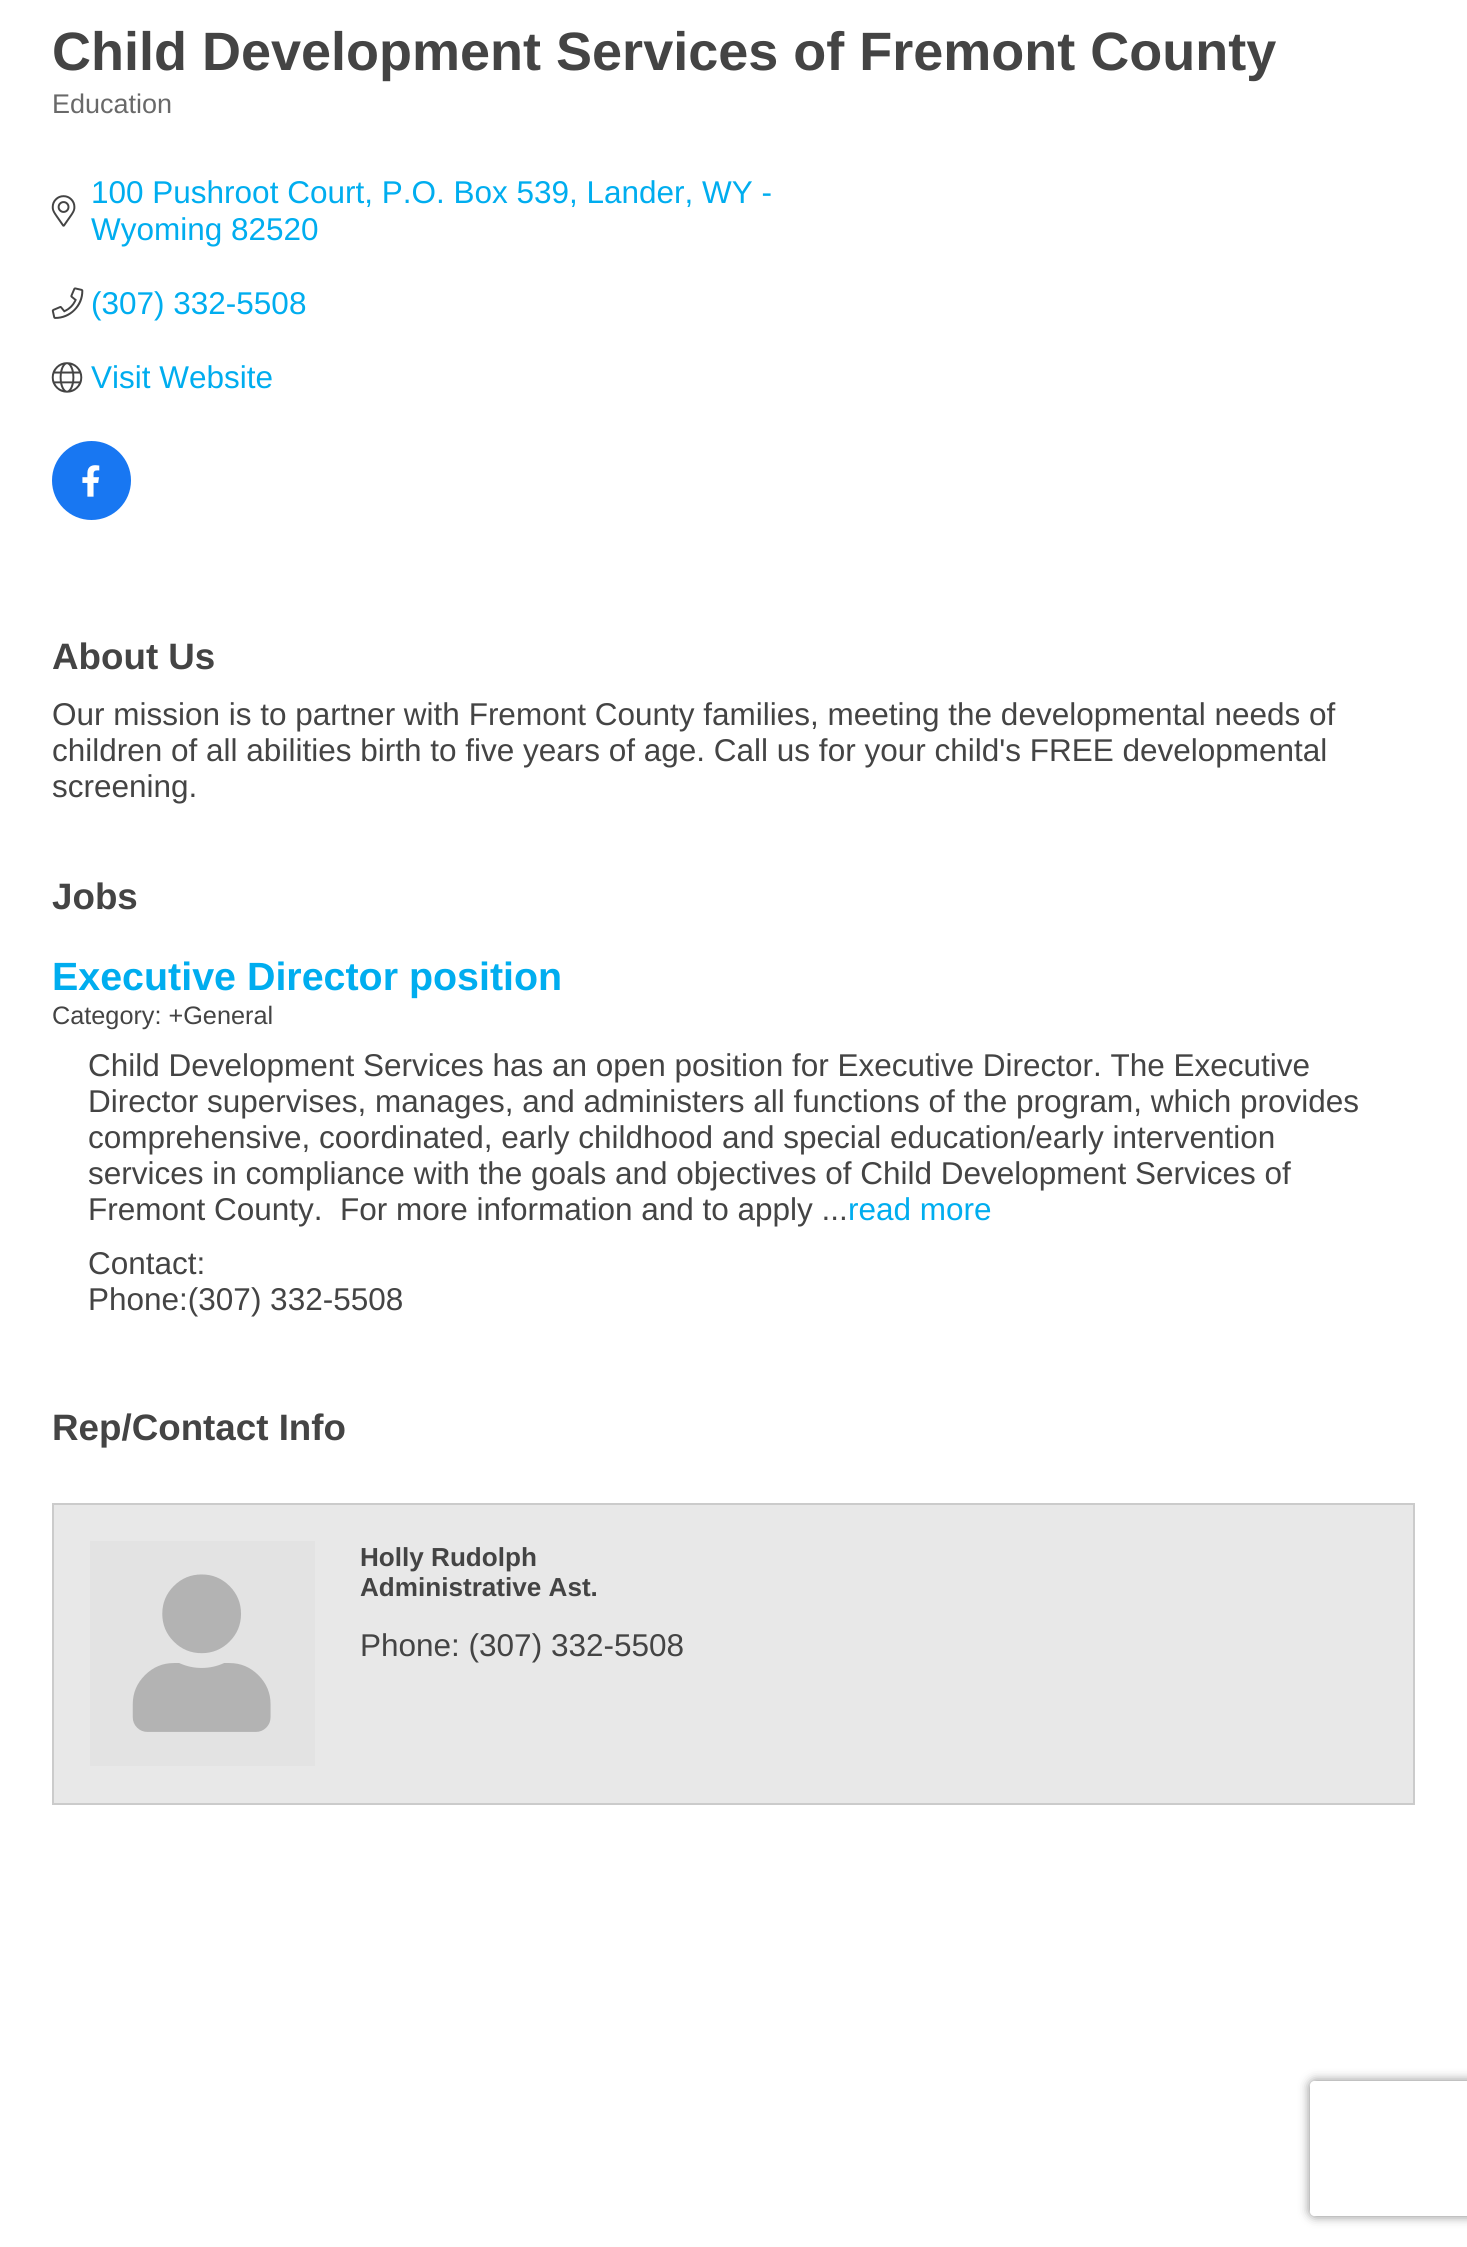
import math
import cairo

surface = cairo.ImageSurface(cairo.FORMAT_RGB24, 1467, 2247)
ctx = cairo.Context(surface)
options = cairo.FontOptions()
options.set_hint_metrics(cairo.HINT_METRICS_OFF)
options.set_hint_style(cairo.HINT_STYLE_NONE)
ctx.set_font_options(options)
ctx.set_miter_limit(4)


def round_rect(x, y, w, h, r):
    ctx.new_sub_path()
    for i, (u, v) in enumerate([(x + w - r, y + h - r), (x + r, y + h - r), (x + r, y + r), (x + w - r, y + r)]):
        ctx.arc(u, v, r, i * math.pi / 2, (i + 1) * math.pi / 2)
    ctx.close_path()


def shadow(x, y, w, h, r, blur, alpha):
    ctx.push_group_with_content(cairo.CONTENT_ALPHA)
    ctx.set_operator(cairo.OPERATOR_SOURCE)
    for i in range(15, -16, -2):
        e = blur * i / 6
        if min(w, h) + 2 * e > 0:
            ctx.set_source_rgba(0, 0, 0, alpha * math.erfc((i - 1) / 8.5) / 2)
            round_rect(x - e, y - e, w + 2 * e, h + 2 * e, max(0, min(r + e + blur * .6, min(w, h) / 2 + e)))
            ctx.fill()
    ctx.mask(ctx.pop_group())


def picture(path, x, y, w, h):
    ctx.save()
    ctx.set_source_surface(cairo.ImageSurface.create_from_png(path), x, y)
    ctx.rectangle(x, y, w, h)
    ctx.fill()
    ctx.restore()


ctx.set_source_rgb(1, 1, 1)
ctx.paint()
ctx.select_font_face("Liberation Sans", cairo.FONT_SLANT_NORMAL, cairo.FONT_WEIGHT_BOLD)
ctx.set_font_size(54)
ctx.set_source_rgb(0.267, 0.267, 0.267)
ctx.move_to(52, 70)
ctx.show_text("Child Development Services of Fremont County")
ctx.select_font_face("Liberation Sans")
ctx.set_font_size(27)
ctx.set_source_rgb(0.412, 0.412, 0.412)
ctx.move_to(52, 113)
ctx.show_text("Education")
picture("img1.png", 51, 195, 25, 32)
ctx.set_font_size(31.5)
ctx.set_source_rgb(0, 0.678, 0.937)
ctx.move_to(91, 203)
ctx.show_text("100 Pushroot Court, P.O. Box 539, Lander, WY -")
ctx.move_to(91, 240)
ctx.show_text("Wyoming 82520")
picture("img2.png", 51, 287, 33, 32)
ctx.move_to(91, 314)
ctx.show_text("(307) 332-5508")
picture("img3.png", 51, 362, 32, 31)
ctx.move_to(91, 388)
ctx.show_text("Visit Website")
ctx.set_source_rgb(0.094, 0.467, 0.949)
ctx.new_path()
ctx.arc(91.5, 480.5, 39.5, 0, 2 * math.pi)
ctx.fill()
picture("img4.png", 82, 465, 18, 32)
ctx.select_font_face("Liberation Sans", cairo.FONT_SLANT_NORMAL, cairo.FONT_WEIGHT_BOLD)
ctx.set_font_size(36.75)
ctx.set_source_rgb(0.267, 0.267, 0.267)
ctx.move_to(52, 669)
ctx.show_text("About Us")
ctx.select_font_face("Liberation Sans")
ctx.set_font_size(31.5)
ctx.move_to(52, 725)
ctx.show_text("Our mission is to partner with Fremont County families, meeting the developmental needs of")
ctx.move_to(52, 761)
ctx.show_text("children of all abilities birth to five years of age. Call us for your child's FREE developmental")
ctx.move_to(52, 797)
ctx.show_text("screening.")
ctx.select_font_face("Liberation Sans", cairo.FONT_SLANT_NORMAL, cairo.FONT_WEIGHT_BOLD)
ctx.set_font_size(36.75)
ctx.move_to(52, 909)
ctx.show_text("Jobs")
ctx.set_font_size(39.4)
ctx.set_source_rgb(0, 0.678, 0.937)
ctx.move_to(52, 990)
ctx.show_text("Executive Director position")
ctx.select_font_face("Liberation Sans")
ctx.set_font_size(25.25)
ctx.set_source_rgb(0.267, 0.267, 0.267)
ctx.move_to(52, 1024)
ctx.show_text("Category: +General")
ctx.set_font_size(31.5)
ctx.move_to(88, 1076)
ctx.show_text("Child Development Services has an open position for Executive Director. The Executive")
ctx.move_to(88, 1112)
ctx.show_text("Director supervises, manages, and administers all functions of the program, which provides")
ctx.move_to(88, 1148)
ctx.show_text("comprehensive, coordinated, early childhood and special education/early intervention")
ctx.move_to(88, 1184)
ctx.show_text("services in compliance with the goals and objectives of Child Development Services of")
ctx.move_to(88, 1220)
ctx.show_text("Fremont County.  For more information and to apply ...")
ctx.set_source_rgb(0, 0.678, 0.937)
ctx.move_to(848, 1220)
ctx.show_text("read more")
ctx.set_source_rgb(0.267, 0.267, 0.267)
ctx.move_to(88, 1274)
ctx.show_text("Contact:")
ctx.move_to(88, 1310)
ctx.show_text("Phone:(307) 332-5508")
ctx.select_font_face("Liberation Sans", cairo.FONT_SLANT_NORMAL, cairo.FONT_WEIGHT_BOLD)
ctx.set_font_size(36.75)
ctx.move_to(52, 1440)
ctx.show_text("Rep/Contact Info")
ctx.set_source_rgb(0.91, 0.91, 0.91)
ctx.rectangle(53, 1504, 1361, 300)
ctx.fill_preserve()
ctx.set_source_rgb(0.796, 0.796, 0.796)
ctx.stroke()
ctx.set_source_rgb(0.89, 0.89, 0.89)
ctx.rectangle(90, 1541, 225, 225)
ctx.fill()
picture("img5.png", 132, 1574, 139, 158)
ctx.set_font_size(26.1)
ctx.set_source_rgb(0.267, 0.267, 0.267)
ctx.move_to(360, 1566)
ctx.show_text("Holly Rudolph")
ctx.move_to(360, 1596)
ctx.show_text("Administrative Ast.")
ctx.select_font_face("Liberation Sans")
ctx.set_font_size(31.5)
ctx.move_to(360, 1656)
ctx.show_text("Phone: (307) 332-5508")
ctx.save()
ctx.set_fill_rule(cairo.FILL_RULE_EVEN_ODD)
ctx.new_path()
ctx.move_to(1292, 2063)
ctx.line_to(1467, 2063)
ctx.line_to(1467, 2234)
ctx.line_to(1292, 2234)
ctx.close_path()
ctx.move_to(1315, 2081)
ctx.line_to(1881, 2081)
ctx.curve_to(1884, 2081, 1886, 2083, 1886, 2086)
ctx.line_to(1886, 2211)
ctx.curve_to(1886, 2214, 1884, 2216, 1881, 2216)
ctx.line_to(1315, 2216)
ctx.curve_to(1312, 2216, 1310, 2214, 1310, 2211)
ctx.line_to(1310, 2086)
ctx.curve_to(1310, 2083, 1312, 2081, 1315, 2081)
ctx.close_path()
ctx.clip()
ctx.set_source_rgb(0.502, 0.502, 0.502)
shadow(1310, 2081, 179, 135, 5, 5.5, 1)
ctx.restore()
surface.write_to_png("page.png")
